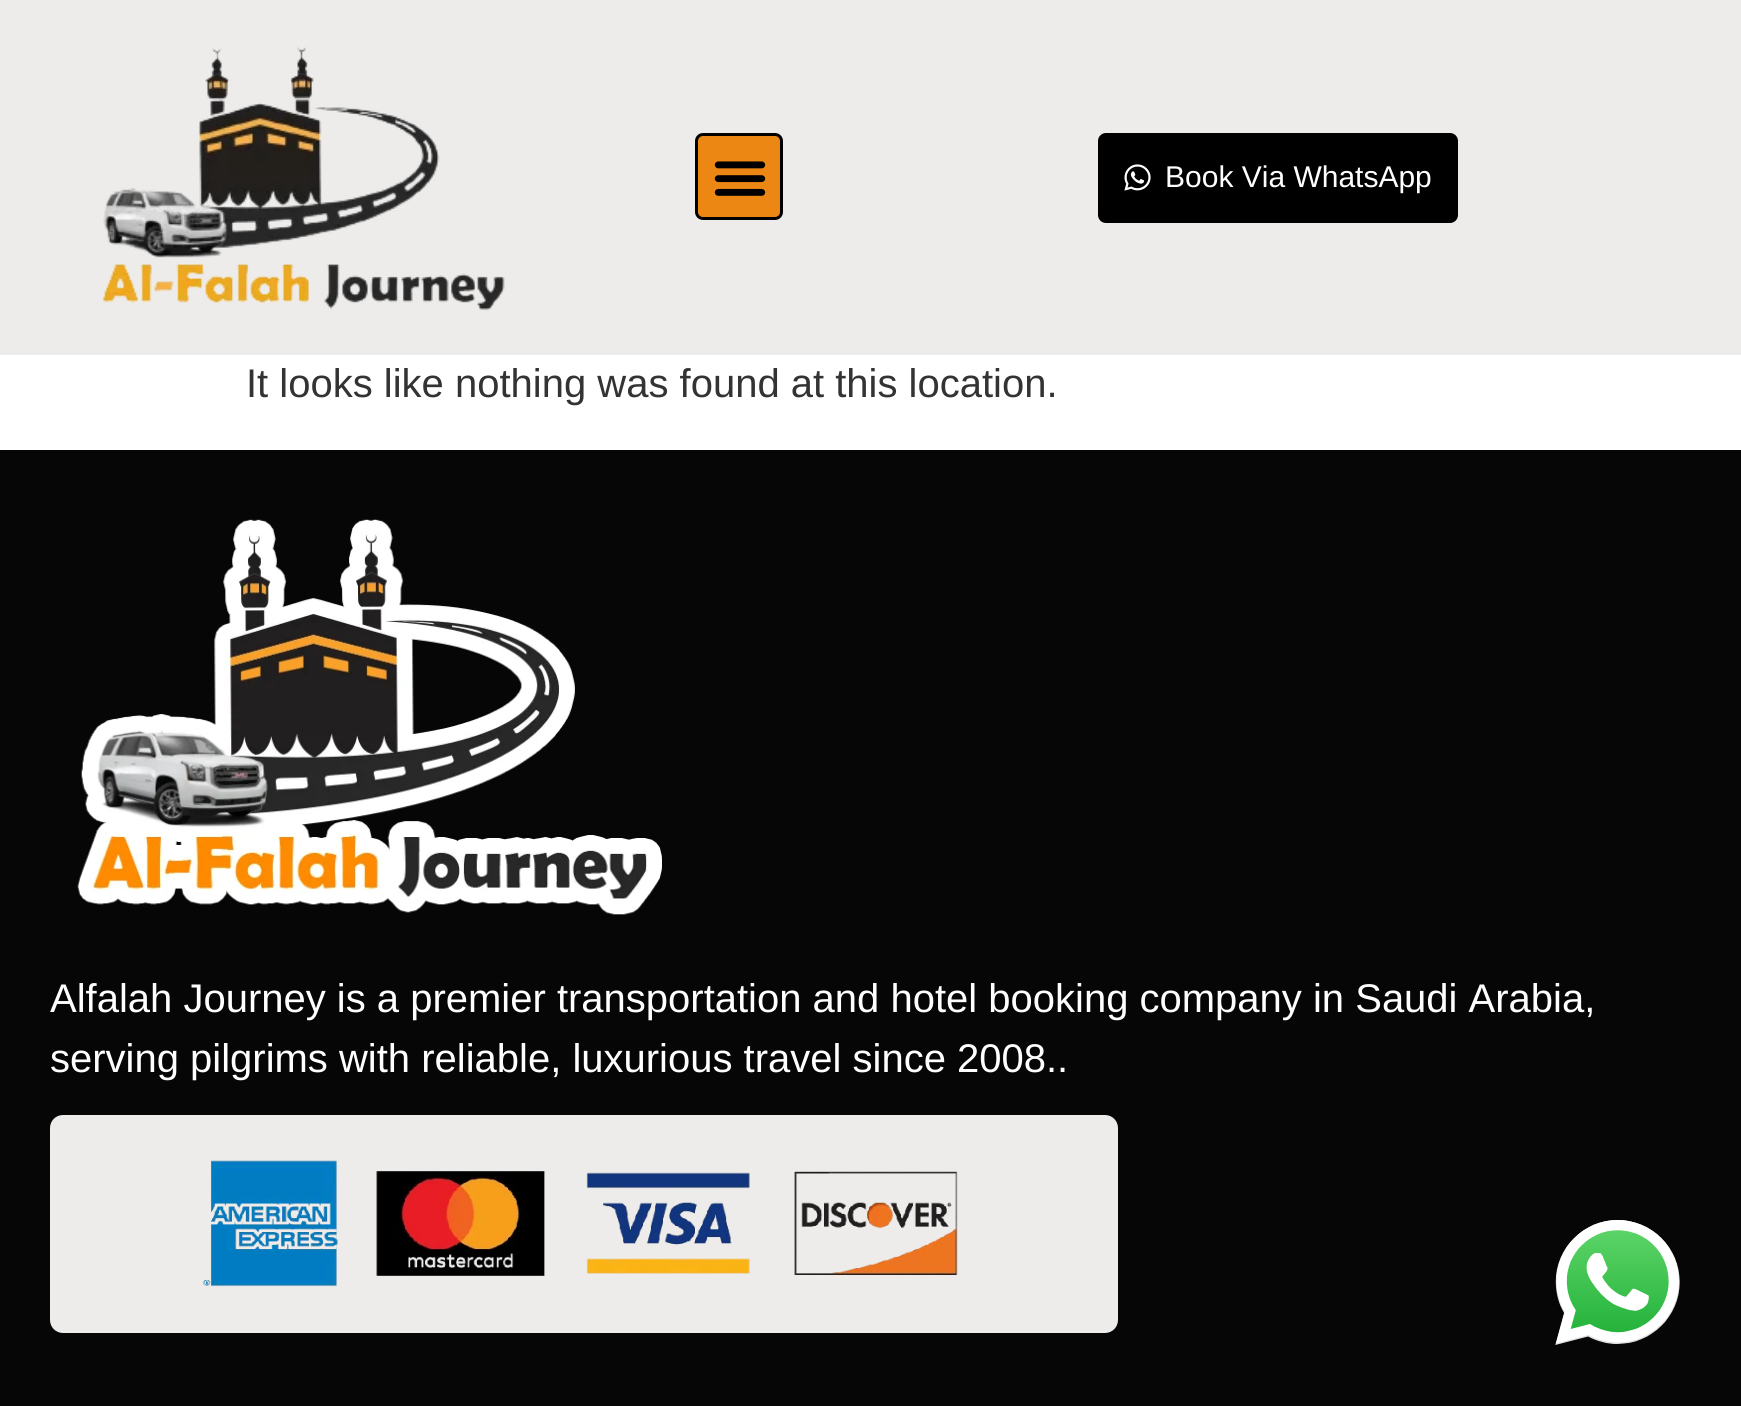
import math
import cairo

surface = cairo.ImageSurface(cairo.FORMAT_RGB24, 1741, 1406)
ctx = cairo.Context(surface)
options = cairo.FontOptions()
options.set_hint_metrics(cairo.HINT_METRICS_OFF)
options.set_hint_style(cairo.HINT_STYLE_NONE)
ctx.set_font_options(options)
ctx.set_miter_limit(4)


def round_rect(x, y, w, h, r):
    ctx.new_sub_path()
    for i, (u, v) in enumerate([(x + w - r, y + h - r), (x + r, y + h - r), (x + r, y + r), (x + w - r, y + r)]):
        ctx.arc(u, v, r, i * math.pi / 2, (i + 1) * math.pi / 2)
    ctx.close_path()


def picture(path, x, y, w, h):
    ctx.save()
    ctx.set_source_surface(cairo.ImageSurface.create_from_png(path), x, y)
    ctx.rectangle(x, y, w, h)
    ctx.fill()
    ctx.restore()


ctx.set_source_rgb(1, 1, 1)
ctx.paint()
ctx.set_source_rgb(0.929, 0.922, 0.918)
ctx.rectangle(0, 0, 1741, 355)
ctx.fill()
picture("img1.png", 102, 46, 403, 265)
ctx.set_source_rgb(0.925, 0.529, 0.082)
round_rect(696.5, 134.5, 85, 84, 6.5)
ctx.fill_preserve()
ctx.set_source_rgb(0, 0, 0)
ctx.set_line_width(3)
ctx.stroke()
picture("img2.png", 714, 161, 52, 35)
round_rect(1098, 133, 360, 90, 8)
ctx.fill()
picture("img3.png", 1124, 164, 27, 27)
ctx.select_font_face("Liberation Sans")
ctx.set_font_size(30)
ctx.set_source_rgb(1, 1, 1)
ctx.move_to(1165, 187)
ctx.show_text("Book Via WhatsApp")
ctx.set_font_size(40)
ctx.set_source_rgb(0.2, 0.2, 0.2)
ctx.move_to(246, 397)
ctx.show_text("It looks like nothing was found at this location.")
ctx.set_source_rgb(0.027, 0.027, 0.027)
ctx.rectangle(0, 450, 1741, 956)
ctx.fill()
picture("img4.png", 77, 519, 585, 396)
ctx.set_source_rgb(1, 1, 1)
ctx.move_to(50, 1012)
ctx.show_text("Alfalah Journey is a premier transportation and hotel booking company in Saudi Arabia,")
ctx.move_to(50, 1072)
ctx.show_text("serving pilgrims with reliable, luxurious travel since 2008..")
ctx.set_source_rgb(0.929, 0.922, 0.918)
round_rect(50, 1115, 1068, 218, 13)
ctx.fill()
picture("img5.png", 203, 1160, 755, 127)
picture("img6.png", 1555, 1220, 125, 125)
surface.write_to_png("page.png")
